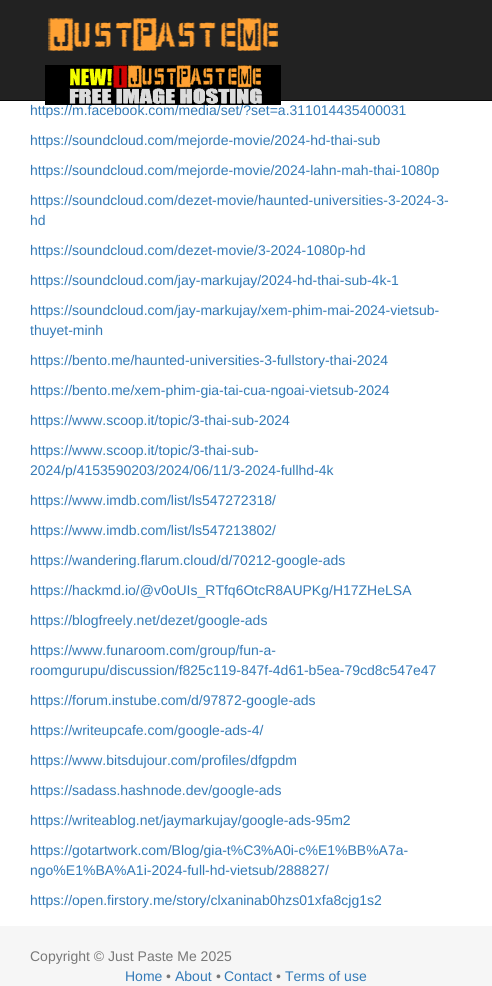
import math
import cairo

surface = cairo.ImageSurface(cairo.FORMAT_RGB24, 492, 986)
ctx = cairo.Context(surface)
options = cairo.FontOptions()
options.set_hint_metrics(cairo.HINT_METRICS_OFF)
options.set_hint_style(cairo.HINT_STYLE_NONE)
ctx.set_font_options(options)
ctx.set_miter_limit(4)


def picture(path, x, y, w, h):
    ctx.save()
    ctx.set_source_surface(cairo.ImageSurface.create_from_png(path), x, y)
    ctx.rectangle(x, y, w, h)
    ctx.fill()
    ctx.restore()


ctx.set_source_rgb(1, 1, 1)
ctx.paint()
ctx.set_source_rgb(0.133, 0.133, 0.133)
ctx.rectangle(0, 0, 492, 100)
ctx.fill()
ctx.set_source_rgb(0.031, 0.031, 0.031)
ctx.rectangle(0, 100, 492, 1)
ctx.fill()
picture("img1.png", 48, 18, 230, 33)
ctx.select_font_face("Liberation Sans")
ctx.set_font_size(14)
ctx.set_source_rgb(0.2, 0.478, 0.718)
ctx.move_to(30, 115)
ctx.show_text("https://m.facebook.com/media/set/?set=a.311014435400031")
picture("img2.png", 45, 65, 236, 40)
ctx.move_to(30, 145)
ctx.show_text("https://soundcloud.com/mejorde-movie/2024-hd-thai-sub")
ctx.move_to(30, 175)
ctx.show_text("https://soundcloud.com/mejorde-movie/2024-lahn-mah-thai-1080p")
ctx.move_to(30, 205)
ctx.show_text("https://soundcloud.com/dezet-movie/haunted-universities-3-2024-3-")
ctx.move_to(30, 225)
ctx.show_text("hd")
ctx.move_to(30, 255)
ctx.show_text("https://soundcloud.com/dezet-movie/3-2024-1080p-hd")
ctx.move_to(30, 285)
ctx.show_text("https://soundcloud.com/jay-markujay/2024-hd-thai-sub-4k-1")
ctx.move_to(30, 315)
ctx.show_text("https://soundcloud.com/jay-markujay/xem-phim-mai-2024-vietsub-")
ctx.move_to(30, 335)
ctx.show_text("thuyet-minh")
ctx.move_to(30, 365)
ctx.show_text("https://bento.me/haunted-universities-3-fullstory-thai-2024")
ctx.move_to(30, 395)
ctx.show_text("https://bento.me/xem-phim-gia-tai-cua-ngoai-vietsub-2024")
ctx.move_to(30, 425)
ctx.show_text("https://www.scoop.it/topic/3-thai-sub-2024")
ctx.move_to(30, 455)
ctx.show_text("https://www.scoop.it/topic/3-thai-sub-")
ctx.move_to(30, 475)
ctx.show_text("2024/p/4153590203/2024/06/11/3-2024-fullhd-4k")
ctx.move_to(30, 505)
ctx.show_text("https://www.imdb.com/list/ls547272318/")
ctx.move_to(30, 535)
ctx.show_text("https://www.imdb.com/list/ls547213802/")
ctx.move_to(30, 565)
ctx.show_text("https://wandering.flarum.cloud/d/70212-google-ads")
ctx.move_to(30, 595)
ctx.show_text("https://hackmd.io/@v0oUIs_RTfq6OtcR8AUPKg/H17ZHeLSA")
ctx.move_to(30, 625)
ctx.show_text("https://blogfreely.net/dezet/google-ads")
ctx.move_to(30, 655)
ctx.show_text("https://www.funaroom.com/group/fun-a-")
ctx.move_to(30, 675)
ctx.show_text("roomgurupu/discussion/f825c119-847f-4d61-b5ea-79cd8c547e47")
ctx.move_to(30, 705)
ctx.show_text("https://forum.instube.com/d/97872-google-ads")
ctx.move_to(30, 735)
ctx.show_text("https://writeupcafe.com/google-ads-4/")
ctx.move_to(30, 765)
ctx.show_text("https://www.bitsdujour.com/profiles/dfgpdm")
ctx.move_to(30, 795)
ctx.show_text("https://sadass.hashnode.dev/google-ads")
ctx.move_to(30, 825)
ctx.show_text("https://writeablog.net/jaymarkujay/google-ads-95m2")
ctx.move_to(30, 855)
ctx.show_text("https://gotartwork.com/Blog/gia-t%C3%A0i-c%E1%BB%A7a-")
ctx.move_to(30, 875)
ctx.show_text("ngo%E1%BA%A1i-2024-full-hd-vietsub/288827/")
ctx.move_to(30, 905)
ctx.show_text("https://open.firstory.me/story/clxaninab0hzs01xfa8cjg1s2")
ctx.set_source_rgb(0.961, 0.961, 0.961)
ctx.rectangle(0, 926, 492, 60)
ctx.fill()
ctx.set_source_rgb(0.467, 0.467, 0.467)
ctx.move_to(30, 961)
ctx.show_text("Copyright © Just Paste Me 2025")
ctx.set_source_rgb(0.2, 0.478, 0.718)
ctx.move_to(125, 981)
ctx.show_text("Home")
ctx.set_source_rgb(0.467, 0.467, 0.467)
ctx.move_to(166, 981)
ctx.show_text("•")
ctx.set_source_rgb(0.2, 0.478, 0.718)
ctx.move_to(175, 981)
ctx.show_text("About")
ctx.set_source_rgb(0.467, 0.467, 0.467)
ctx.move_to(216, 981)
ctx.show_text("•")
ctx.set_source_rgb(0.2, 0.478, 0.718)
ctx.move_to(224, 981)
ctx.show_text("Contact")
ctx.set_source_rgb(0.467, 0.467, 0.467)
ctx.move_to(276, 981)
ctx.show_text("•")
ctx.set_source_rgb(0.2, 0.478, 0.718)
ctx.move_to(285, 981)
ctx.show_text("Terms of use")
surface.write_to_png("page.png")
